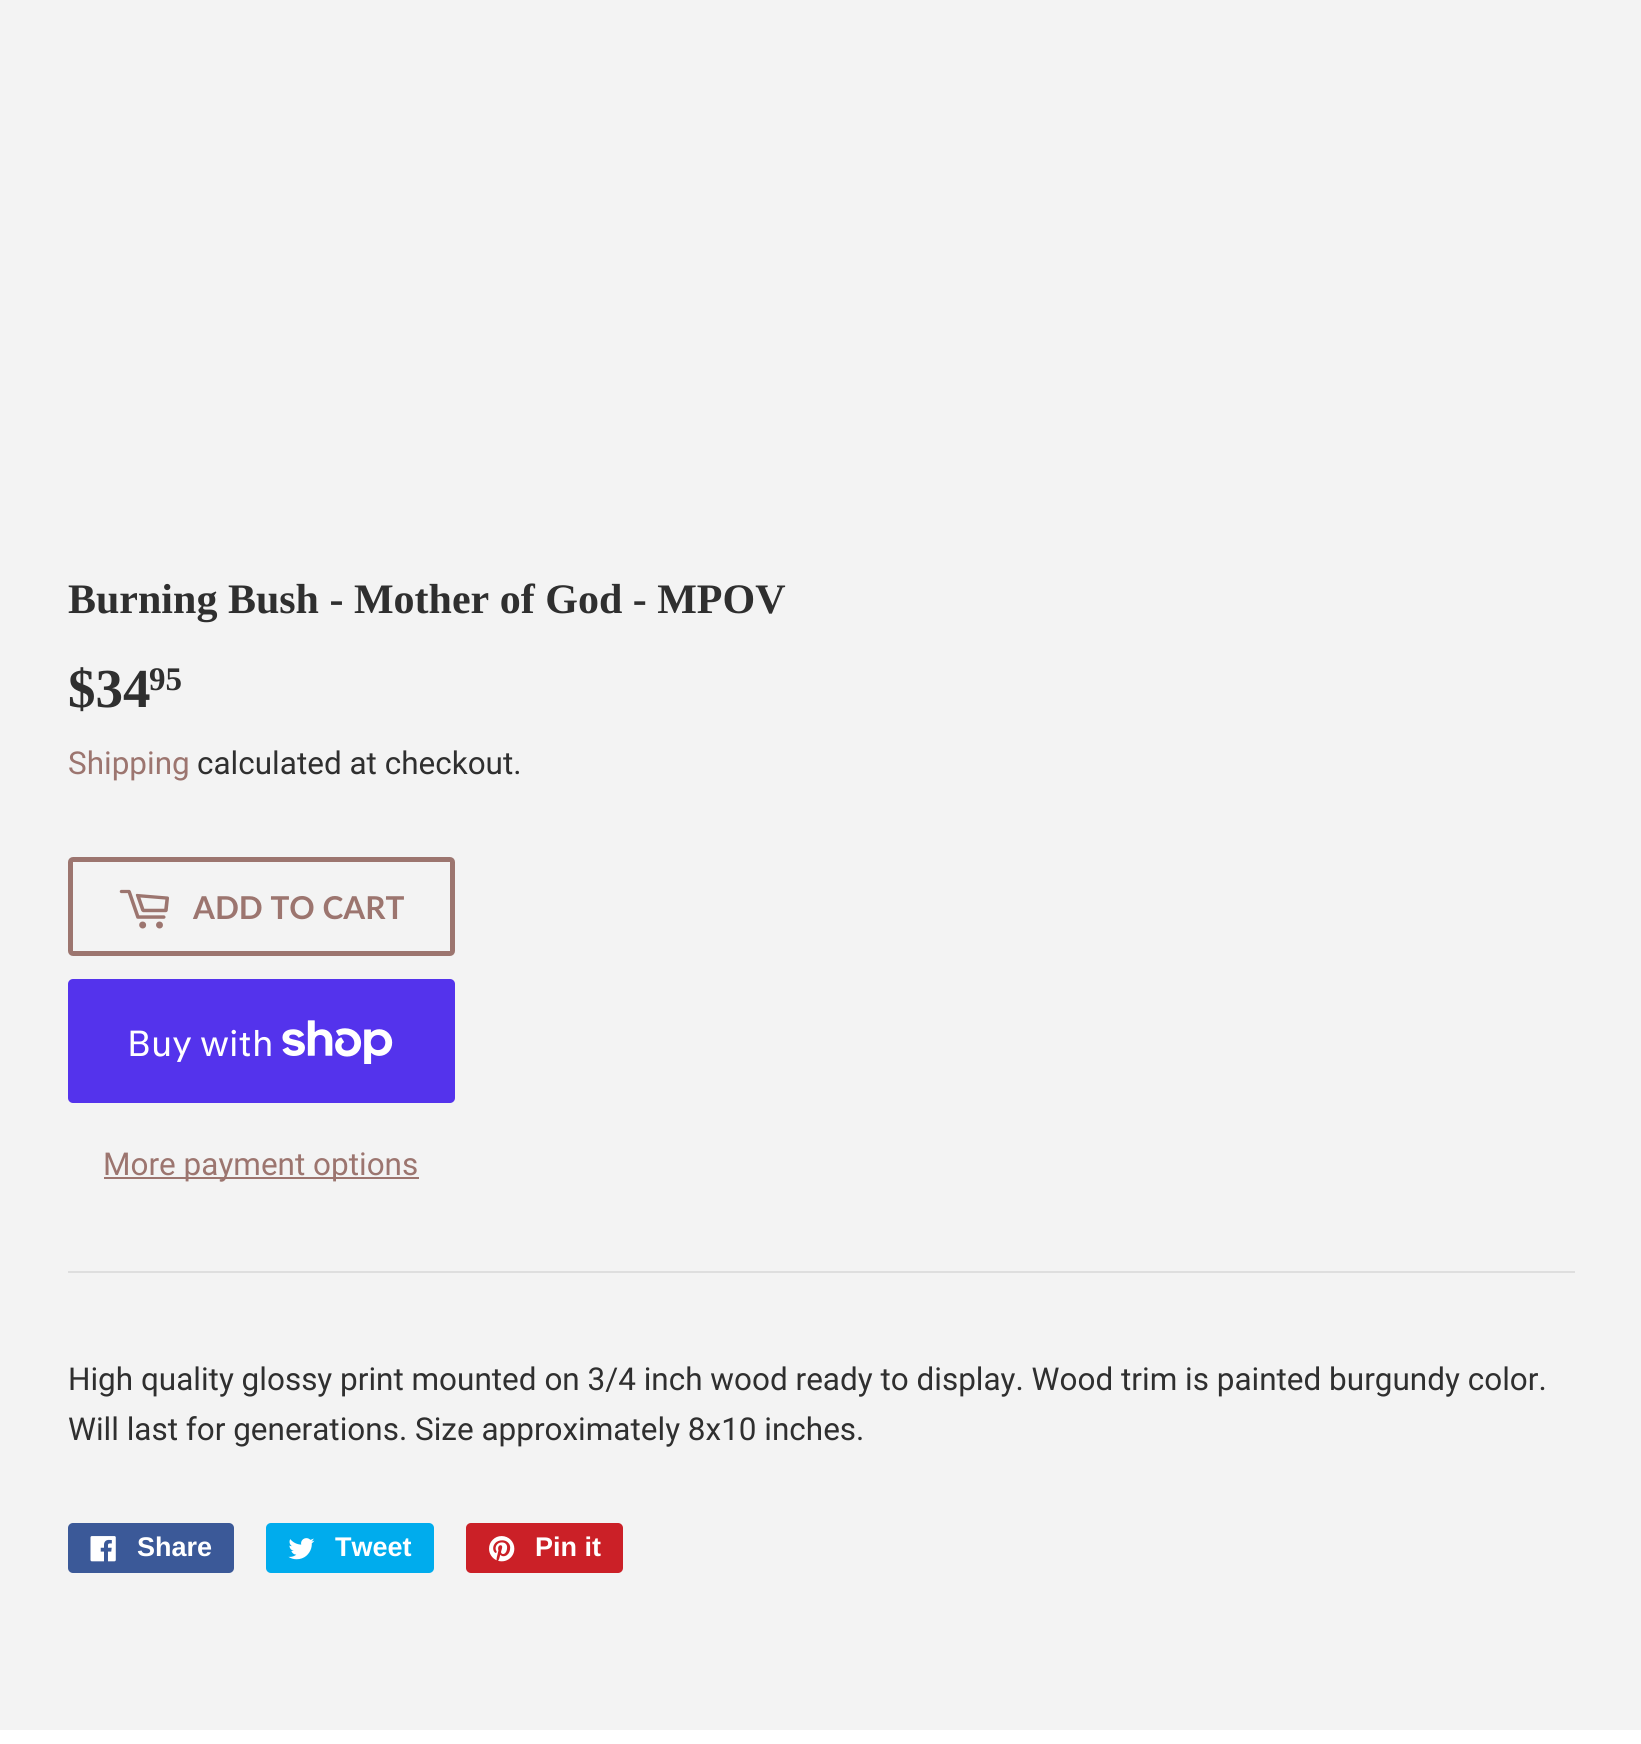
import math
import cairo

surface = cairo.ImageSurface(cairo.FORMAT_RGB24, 1641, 1744)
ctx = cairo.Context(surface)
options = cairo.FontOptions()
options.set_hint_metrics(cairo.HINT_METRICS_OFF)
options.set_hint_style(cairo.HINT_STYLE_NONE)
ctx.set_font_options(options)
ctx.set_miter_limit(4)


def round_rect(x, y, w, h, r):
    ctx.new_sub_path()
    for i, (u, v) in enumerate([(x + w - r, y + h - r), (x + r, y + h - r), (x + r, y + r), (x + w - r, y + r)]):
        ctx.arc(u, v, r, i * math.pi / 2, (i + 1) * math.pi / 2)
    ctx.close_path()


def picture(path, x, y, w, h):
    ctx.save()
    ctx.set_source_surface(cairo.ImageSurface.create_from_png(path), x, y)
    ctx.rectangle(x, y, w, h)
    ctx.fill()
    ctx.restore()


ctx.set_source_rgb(0.953, 0.953, 0.953)
ctx.paint()
ctx.select_font_face("Liberation Serif", cairo.FONT_SLANT_NORMAL, cairo.FONT_WEIGHT_BOLD)
ctx.set_font_size(42)
ctx.set_source_rgb(0.184, 0.184, 0.184)
ctx.move_to(68, 613)
ctx.show_text("Burning Bush - Mother of God - MPOV")
ctx.set_font_size(55)
ctx.move_to(68, 707)
ctx.show_text("$34")
ctx.set_font_size(33)
ctx.move_to(149, 690)
ctx.show_text("95")
ctx.select_font_face("Roboto")
ctx.set_font_size(31.5)
ctx.set_source_rgb(0.612, 0.459, 0.435)
ctx.move_to(68, 774)
ctx.show_text("Shipping")
ctx.set_source_rgb(0.184, 0.184, 0.184)
ctx.move_to(197, 774)
ctx.show_text("calculated at checkout.")
round_rect(70.5, 859.5, 382, 94, 2.5)
ctx.set_source_rgb(0.612, 0.459, 0.435)
ctx.set_line_width(5)
ctx.stroke()
picture("img1.png", 119, 889, 50, 40)
ctx.select_font_face("Lato", cairo.FONT_SLANT_NORMAL, cairo.FONT_WEIGHT_BOLD)
ctx.move_to(193, 919)
ctx.show_text("ADD TO CART")
ctx.set_source_rgb(0.329, 0.2, 0.922)
round_rect(68, 979, 387, 124, 5)
ctx.fill()
ctx.select_font_face("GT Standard")
ctx.set_font_size(36)
ctx.set_source_rgb(1, 1, 1)
ctx.move_to(127, 1056)
ctx.show_text("Buy with")
picture("img2.png", 282, 1020, 111, 44)
ctx.set_source_rgb(0.612, 0.459, 0.435)
ctx.rectangle(104, 1177, 315, 2)
ctx.fill()
ctx.select_font_face("Roboto")
ctx.set_font_size(31.5)
ctx.move_to(103, 1175)
ctx.show_text("More payment options")
ctx.set_source_rgb(0.871, 0.871, 0.871)
ctx.rectangle(68, 1271, 1507, 2)
ctx.fill()
ctx.set_source_rgb(0.184, 0.184, 0.184)
ctx.move_to(68, 1390)
ctx.show_text("High quality glossy print mounted on 3/4 inch wood ready to display. Wood trim is painted burgundy color.")
ctx.move_to(68, 1440)
ctx.show_text("Will last for generations. Size approximately 8x10 inches.")
ctx.set_source_rgb(0.231, 0.349, 0.596)
round_rect(68, 1523, 166, 50, 5)
ctx.fill()
picture("img3.png", 90, 1536, 26, 26)
ctx.select_font_face("Liberation Sans", cairo.FONT_SLANT_NORMAL, cairo.FONT_WEIGHT_BOLD)
ctx.set_font_size(27)
ctx.set_source_rgb(1, 1, 1)
ctx.move_to(137, 1556)
ctx.show_text("Share")
ctx.set_source_rgb(0, 0.675, 0.929)
round_rect(266, 1523, 168, 50, 5)
ctx.fill()
picture("img4.png", 288, 1538, 27, 22)
ctx.set_source_rgb(1, 1, 1)
ctx.move_to(335, 1556)
ctx.show_text("Tweet")
ctx.set_source_rgb(0.796, 0.125, 0.153)
round_rect(466, 1523, 157, 50, 5)
ctx.fill()
picture("img5.png", 489, 1536, 26, 26)
ctx.set_source_rgb(1, 1, 1)
ctx.move_to(535, 1556)
ctx.show_text("Pin it")
ctx.rectangle(0, 1730, 1641, 14)
ctx.fill()
surface.write_to_png("page.png")
